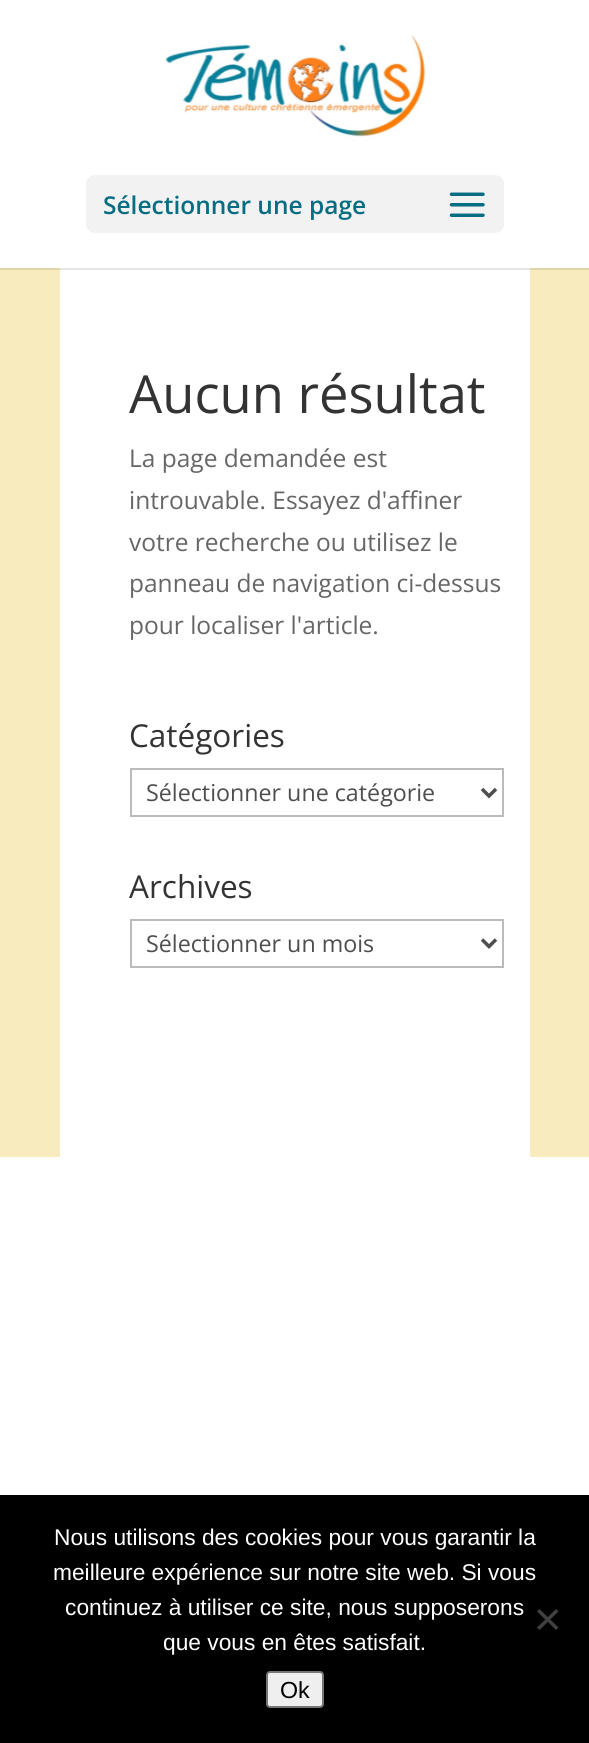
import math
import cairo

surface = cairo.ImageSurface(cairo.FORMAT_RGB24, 589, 1743)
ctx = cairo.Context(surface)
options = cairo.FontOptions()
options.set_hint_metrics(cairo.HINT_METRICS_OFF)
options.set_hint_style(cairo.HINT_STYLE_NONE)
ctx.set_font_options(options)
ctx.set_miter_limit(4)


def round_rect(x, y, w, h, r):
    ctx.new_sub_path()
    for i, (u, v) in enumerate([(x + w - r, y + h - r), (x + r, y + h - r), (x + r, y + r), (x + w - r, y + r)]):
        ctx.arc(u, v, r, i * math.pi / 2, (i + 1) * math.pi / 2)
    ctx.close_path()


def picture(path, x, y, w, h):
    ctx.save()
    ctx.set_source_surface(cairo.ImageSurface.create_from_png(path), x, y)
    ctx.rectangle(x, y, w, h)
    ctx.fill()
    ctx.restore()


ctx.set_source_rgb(1, 1, 1)
ctx.paint()
ctx.set_source_rgb(0.969, 0.922, 0.745)
ctx.rectangle(0, 268, 589, 889)
ctx.fill()
ctx.set_source_rgb(1, 1, 1)
ctx.rectangle(60, 268, 470, 889)
ctx.fill()
ctx.set_source_rgba(0, 0, 0, 0.1)
ctx.new_path()
ctx.move_to(0, 268)
ctx.line_to(0, 270)
ctx.line_to(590, 270)
ctx.line_to(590, 2)
ctx.line_to(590, 268)
ctx.close_path()
ctx.fill()
picture("img1.png", 164, 35, 262, 105)
ctx.set_source_rgb(0.949, 0.949, 0.949)
round_rect(86, 175, 418, 58, 9)
ctx.fill()
ctx.select_font_face("Open Sans SemiBold")
ctx.set_font_size(24.5)
ctx.set_source_rgb(0.027, 0.427, 0.51)
ctx.move_to(103, 214)
ctx.show_text("Sélectionner une page")
picture("img2.png", 449, 192, 36, 25)
ctx.select_font_face("Open Sans")
ctx.set_font_size(52.5)
ctx.set_source_rgb(0.2, 0.2, 0.2)
ctx.move_to(129, 413)
ctx.show_text("Aucun résultat")
ctx.set_font_size(24.5)
ctx.set_source_rgb(0.4, 0.4, 0.4)
ctx.move_to(129, 467)
ctx.show_text("La page demandée est")
ctx.move_to(129, 509)
ctx.show_text("introuvable. Essayez d'affiner")
ctx.move_to(129, 551)
ctx.show_text("votre recherche ou utilisez le")
ctx.move_to(129, 592)
ctx.show_text("panneau de navigation ci-dessus")
ctx.move_to(129, 634)
ctx.show_text("pour localiser l'article.")
ctx.set_font_size(31.5)
ctx.set_source_rgb(0.2, 0.2, 0.2)
ctx.move_to(129, 747)
ctx.show_text("Catégories")
ctx.rectangle(131, 769, 372, 47)
ctx.set_source_rgb(0.733, 0.733, 0.733)
ctx.stroke()
ctx.new_path()
ctx.move_to(482, 789)
ctx.line_to(489, 796)
ctx.line_to(496, 789)
ctx.set_source_rgb(0.306, 0.306, 0.306)
ctx.set_line_width(3.5)
ctx.stroke()
ctx.set_font_size(23.25)
ctx.move_to(146, 801)
ctx.show_text("Sélectionner une catégorie")
ctx.set_font_size(31.5)
ctx.set_source_rgb(0.2, 0.2, 0.2)
ctx.move_to(129, 898)
ctx.show_text("Archives")
ctx.rectangle(131, 920, 372, 47)
ctx.set_source_rgb(0.733, 0.733, 0.733)
ctx.set_line_width(2)
ctx.stroke()
ctx.new_path()
ctx.move_to(482, 939.5)
ctx.line_to(489, 946.5)
ctx.line_to(496, 939.5)
ctx.set_source_rgb(0.306, 0.306, 0.306)
ctx.set_line_width(3.5)
ctx.stroke()
ctx.set_font_size(23.25)
ctx.move_to(146, 952)
ctx.show_text("Sélectionner un mois")
ctx.set_source_rgb(0, 0, 0)
ctx.rectangle(0, 1495, 589, 248)
ctx.fill()
ctx.select_font_face("Liberation Sans")
ctx.set_font_size(22.75)
ctx.set_source_rgb(1, 1, 1)
ctx.move_to(54, 1545)
ctx.show_text("Nous utilisons des cookies pour vous garantir la")
ctx.move_to(53, 1580)
ctx.show_text("meilleure expérience sur notre site web. Si vous")
ctx.move_to(65, 1615)
ctx.show_text("continuez à utiliser ce site, nous supposerons")
ctx.move_to(163, 1650)
ctx.show_text("que vous en êtes satisfait.")
ctx.set_source_rgb(0.251, 0.251, 0.251)
ctx.new_path()
ctx.move_to(556, 1609)
ctx.line_to(558.5, 1611.5)
ctx.line_to(539.5, 1630)
ctx.line_to(537, 1627.5)
ctx.close_path()
ctx.fill()
ctx.new_path()
ctx.move_to(537, 1611.5)
ctx.line_to(539.5, 1609)
ctx.line_to(558.5, 1627.5)
ctx.line_to(556, 1630)
ctx.close_path()
ctx.fill()
ctx.set_source_rgb(0.937, 0.937, 0.937)
round_rect(267, 1672, 56, 35, 3)
ctx.fill_preserve()
ctx.set_source_rgb(0.463, 0.463, 0.463)
ctx.set_line_width(2)
ctx.stroke()
ctx.set_font_size(23.25)
ctx.set_source_rgb(0, 0, 0)
ctx.move_to(280, 1698)
ctx.show_text("Ok")
surface.write_to_png("page.png")
